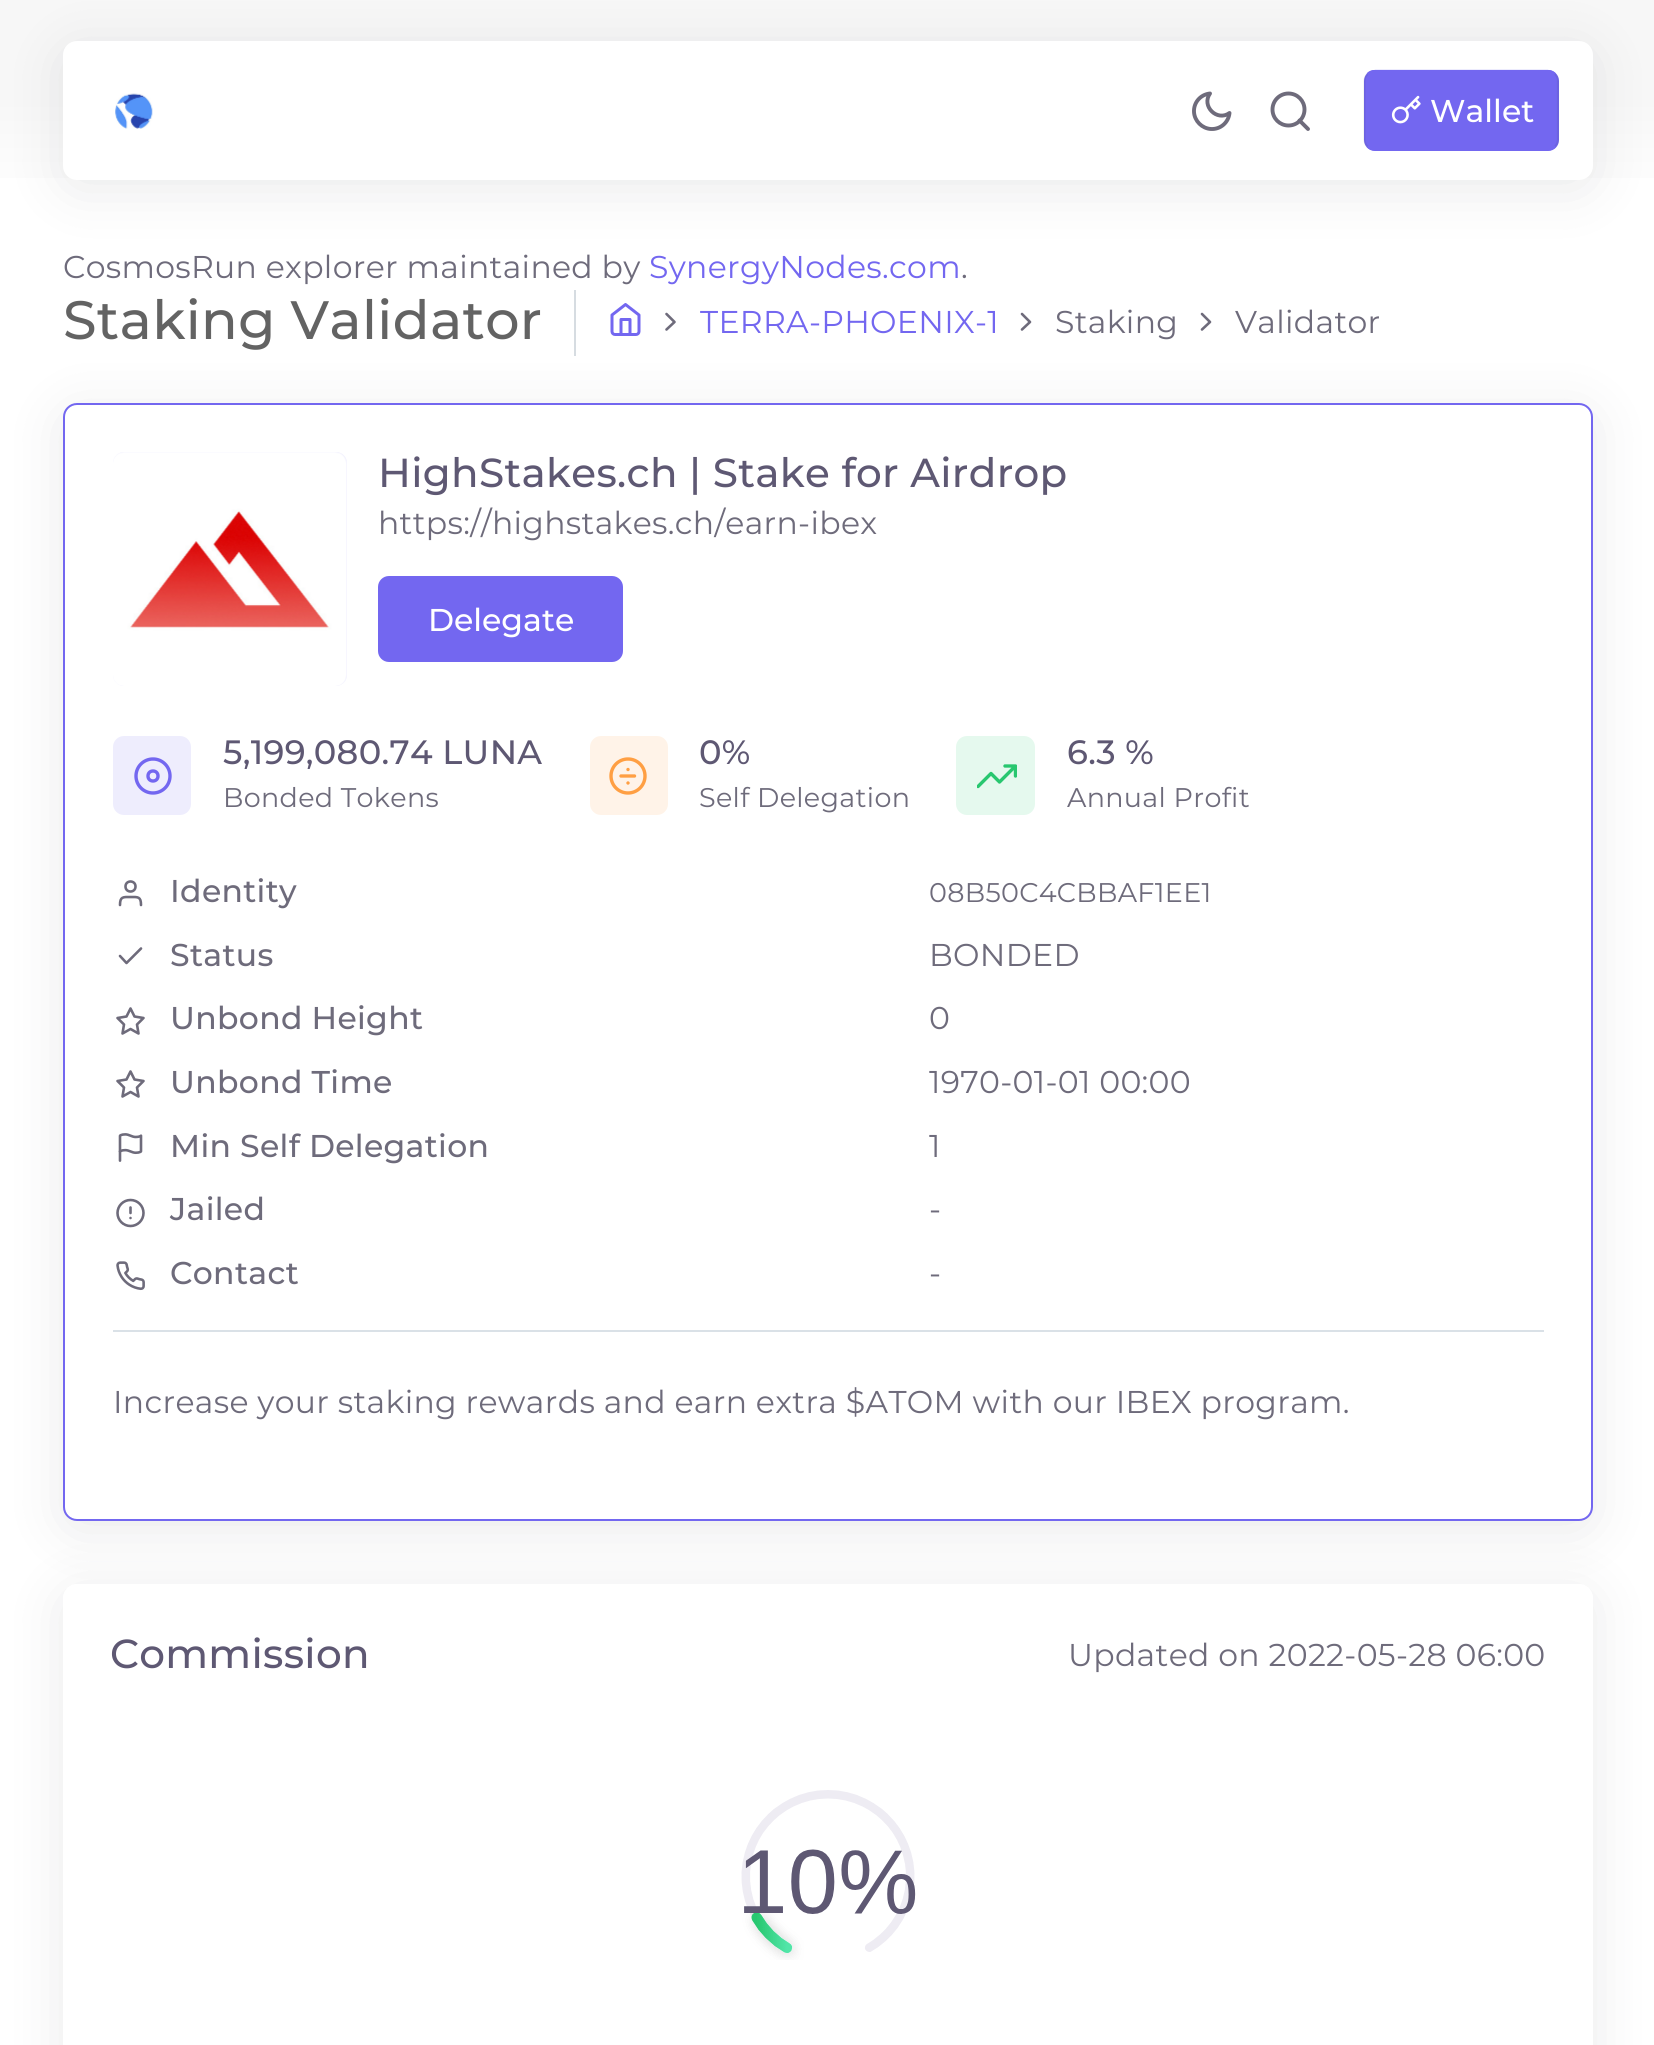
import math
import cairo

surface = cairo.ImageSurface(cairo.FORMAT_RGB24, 1654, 2045)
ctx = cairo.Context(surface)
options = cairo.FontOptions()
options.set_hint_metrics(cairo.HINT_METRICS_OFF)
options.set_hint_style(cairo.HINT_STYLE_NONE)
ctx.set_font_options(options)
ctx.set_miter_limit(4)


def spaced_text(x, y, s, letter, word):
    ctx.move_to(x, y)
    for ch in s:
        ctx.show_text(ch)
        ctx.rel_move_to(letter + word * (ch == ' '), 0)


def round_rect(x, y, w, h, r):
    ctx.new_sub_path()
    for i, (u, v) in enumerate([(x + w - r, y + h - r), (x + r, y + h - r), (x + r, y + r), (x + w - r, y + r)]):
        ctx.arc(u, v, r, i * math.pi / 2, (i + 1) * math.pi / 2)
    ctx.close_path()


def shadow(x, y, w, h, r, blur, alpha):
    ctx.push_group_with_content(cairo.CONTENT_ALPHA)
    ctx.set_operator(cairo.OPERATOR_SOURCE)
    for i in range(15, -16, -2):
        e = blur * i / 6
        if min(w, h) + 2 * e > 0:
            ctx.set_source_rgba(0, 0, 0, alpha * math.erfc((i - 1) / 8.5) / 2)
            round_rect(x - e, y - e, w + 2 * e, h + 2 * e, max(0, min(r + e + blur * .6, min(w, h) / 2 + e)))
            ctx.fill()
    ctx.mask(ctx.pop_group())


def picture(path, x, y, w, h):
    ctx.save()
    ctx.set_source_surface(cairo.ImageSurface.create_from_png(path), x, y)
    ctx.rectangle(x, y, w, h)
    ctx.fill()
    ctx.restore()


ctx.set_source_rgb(1, 1, 1)
ctx.paint()
gradient = cairo.LinearGradient(828, 0, 828, 230)
gradient.add_color_stop_rgba(0.44, 0.969, 0.969, 0.969, 1)
gradient.add_color_stop_rgba(0.73, 0.988, 0.988, 0.988, 1)
gradient.add_color_stop_rgba(1, 1, 1, 1, 1)
ctx.set_source(gradient)
ctx.rectangle(0, 0, 1654, 178)
ctx.fill()
ctx.set_source_rgb(0.133, 0.161, 0.184)
shadow(63, 50, 1530, 139, 14, 27, 0.1)
ctx.set_source_rgb(1, 1, 1)
round_rect(63, 41, 1530, 139, 14)
ctx.fill()
picture("img1.png", 115, 93, 38, 36)
ctx.new_path()
ctx.move_to(1229.5, 113)
ctx.curve_to(1228.5, 122.5, 1220.5, 129.5, 1211, 129)
ctx.curve_to(1202, 128.5, 1194.5, 121, 1194, 112)
ctx.curve_to(1193.5, 102.5, 1200.5, 94.5, 1210, 93.5)
ctx.curve_to(1201, 106, 1217, 122, 1229.5, 113)
ctx.close_path()
ctx.set_source_rgb(0.431, 0.42, 0.482)
ctx.set_line_width(3.9)
ctx.set_line_cap(cairo.LINE_CAP_ROUND)
ctx.set_line_join(cairo.LINE_JOIN_ROUND)
ctx.stroke()
ctx.arc(1288.5, 109.5, 16, 0, 2 * math.pi)
ctx.set_line_cap(cairo.LINE_CAP_BUTT)
ctx.set_line_join(cairo.LINE_JOIN_MITER)
ctx.stroke()
ctx.new_path()
ctx.move_to(1308, 129)
ctx.line_to(1299.5, 120.5)
ctx.set_line_cap(cairo.LINE_CAP_ROUND)
ctx.set_line_join(cairo.LINE_JOIN_ROUND)
ctx.stroke()
ctx.set_source_rgb(0.451, 0.404, 0.941)
round_rect(1364, 70, 195, 81, 11)
ctx.fill()
ctx.new_path()
ctx.move_to(1367.5, 74)
ctx.curve_to(1369.5, 72, 1372, 71, 1375, 71)
ctx.line_to(1548, 71)
ctx.curve_to(1550.5, 71, 1553, 72, 1555, 74)
ctx.set_line_width(2.2)
ctx.set_line_cap(cairo.LINE_CAP_BUTT)
ctx.set_line_join(cairo.LINE_JOIN_MITER)
ctx.stroke()
ctx.new_path()
ctx.move_to(1555, 74)
ctx.curve_to(1557, 76, 1558, 78.5, 1558, 81)
ctx.line_to(1558, 139.5)
ctx.curve_to(1558, 142, 1557, 144.5, 1555, 146.5)
ctx.set_source_rgba(0.133, 0.161, 0.184, 0.08)
ctx.stroke()
ctx.new_path()
ctx.move_to(1555, 146.5)
ctx.curve_to(1553, 148.5, 1550.5, 149.5, 1548, 149.5)
ctx.line_to(1375, 149.5)
ctx.curve_to(1372, 149.5, 1369.5, 148.5, 1367.5, 146.5)
ctx.set_source_rgb(0.451, 0.404, 0.941)
ctx.stroke()
ctx.new_path()
ctx.move_to(1367.5, 146.5)
ctx.curve_to(1365.5, 144.5, 1364.5, 142, 1364.5, 139.5)
ctx.line_to(1364.5, 81)
ctx.curve_to(1364.5, 78.5, 1365.5, 76, 1367.5, 74)
ctx.set_source_rgba(0.133, 0.161, 0.184, 0.08)
ctx.stroke()
picture("img2.png", 1391, 95, 30, 29)
ctx.select_font_face("Montserrat Medium")
ctx.set_font_size(31.5)
ctx.set_source_rgb(1, 1, 1)
ctx.move_to(1430, 122)
ctx.show_text("Wallet")
ctx.select_font_face("Montserrat")
ctx.set_source_rgb(0.431, 0.42, 0.482)
spaced_text(63, 278, "CosmosRun explorer maintained by", 0.32, 0)
ctx.set_source_rgb(0.451, 0.404, 0.941)
spaced_text(649, 278, "SynergyNodes.com", 0.32, 0)
ctx.set_source_rgb(0.431, 0.42, 0.482)
spaced_text(961, 278, ".", 0.32, 0)
ctx.set_source_rgb(0.839, 0.863, 0.882)
ctx.rectangle(574, 290, 2, 66)
ctx.fill()
ctx.select_font_face("Montserrat Medium")
ctx.set_font_size(54)
ctx.set_source_rgb(0.388, 0.388, 0.388)
spaced_text(63, 339, "Staking Validator", 0.32, 0)
picture("img3.png", 610, 303, 31, 33)
ctx.new_path()
ctx.move_to(666.5, 329.5)
ctx.line_to(674.5, 322)
ctx.line_to(666.5, 314)
ctx.set_source_rgb(0.431, 0.42, 0.482)
ctx.set_line_width(2.6)
ctx.set_line_cap(cairo.LINE_CAP_ROUND)
ctx.set_line_join(cairo.LINE_JOIN_ROUND)
ctx.stroke()
ctx.select_font_face("Montserrat")
ctx.set_font_size(31.5)
ctx.set_source_rgb(0.451, 0.404, 0.941)
spaced_text(700, 333, "TERRA-PHOENIX-1", 0.32, 0)
ctx.new_path()
ctx.move_to(1022, 329.5)
ctx.line_to(1030, 322)
ctx.line_to(1022, 314)
ctx.set_source_rgb(0.431, 0.42, 0.482)
ctx.stroke()
spaced_text(1055, 333, "Staking", 0.32, 0)
ctx.new_path()
ctx.move_to(1202, 329.5)
ctx.line_to(1210, 322)
ctx.line_to(1202, 314)
ctx.stroke()
spaced_text(1235, 333, "Validator", 0.32, 0)
ctx.set_source_rgb(0.133, 0.161, 0.184)
shadow(63, 412, 1530, 1118, 14, 27, 0.1)
ctx.set_source_rgb(1, 1, 1)
round_rect(64, 404, 1528, 1116, 13)
ctx.fill_preserve()
ctx.set_source_rgb(0.451, 0.404, 0.941)
ctx.set_line_width(2)
ctx.set_line_cap(cairo.LINE_CAP_BUTT)
ctx.set_line_join(cairo.LINE_JOIN_MITER)
ctx.stroke()
ctx.set_source_rgb(0.933, 0.929, 0.992)
round_rect(113, 452, 234, 234, 11)
ctx.fill()
picture("img4.png", 113, 452, 234, 234)
ctx.select_font_face("Montserrat Medium")
ctx.set_font_size(40.5)
ctx.set_source_rgb(0.369, 0.345, 0.451)
spaced_text(378, 487, "HighStakes.ch | Stake for Airdrop", 0.32, 0)
ctx.select_font_face("Montserrat")
ctx.set_font_size(31.5)
ctx.set_source_rgb(0.431, 0.42, 0.482)
spaced_text(378, 534, "https://highstakes.ch/earn-ibex", 0.32, 0)
ctx.set_source_rgb(0.451, 0.404, 0.941)
round_rect(379, 577, 243, 84, 10)
ctx.fill_preserve()
ctx.stroke()
ctx.select_font_face("Montserrat Medium")
ctx.set_source_rgb(1, 1, 1)
ctx.move_to(428, 631)
ctx.show_text("Delegate")
ctx.set_source_rgb(0.933, 0.929, 0.992)
round_rect(113, 736, 78, 79, 11)
ctx.fill()
ctx.arc(153, 776, 17, 0, 2 * math.pi)
ctx.set_source_rgb(0.451, 0.404, 0.941)
ctx.set_line_width(3.4)
ctx.stroke()
ctx.arc(153, 776, 5, 0, 2 * math.pi)
ctx.stroke()
ctx.set_font_size(33.75)
ctx.set_source_rgb(0.369, 0.345, 0.451)
spaced_text(223, 764, "5,199,080.74 LUNA", 0.32, 0)
ctx.select_font_face("Montserrat")
ctx.set_font_size(27)
ctx.set_source_rgb(0.431, 0.42, 0.482)
spaced_text(223, 807, "Bonded Tokens", 0.32, 0)
ctx.set_source_rgb(1, 0.953, 0.91)
round_rect(590, 736, 78, 79, 11)
ctx.fill()
ctx.new_path()
ctx.move_to(621, 776)
ctx.line_to(634.5, 776)
ctx.move_to(628, 783)
ctx.line_to(628, 783)
ctx.move_to(628, 769.5)
ctx.line_to(628, 769.5)
ctx.set_source_rgb(1, 0.624, 0.263)
ctx.set_line_cap(cairo.LINE_CAP_ROUND)
ctx.set_line_join(cairo.LINE_JOIN_ROUND)
ctx.stroke()
ctx.arc(628, 776, 17, 0, 2 * math.pi)
ctx.set_line_cap(cairo.LINE_CAP_BUTT)
ctx.set_line_join(cairo.LINE_JOIN_MITER)
ctx.stroke()
ctx.select_font_face("Montserrat Medium")
ctx.set_font_size(33.75)
ctx.set_source_rgb(0.369, 0.345, 0.451)
spaced_text(699, 764, "0%", 0.32, 0)
ctx.select_font_face("Montserrat")
ctx.set_font_size(27)
ctx.set_source_rgb(0.431, 0.42, 0.482)
spaced_text(699, 807, "Self Delegation", 0.32, 0)
ctx.set_source_rgb(0.898, 0.973, 0.933)
round_rect(956, 736, 79, 79, 11)
ctx.fill()
ctx.save()
ctx.rectangle(977, 756, 40, 41)
ctx.clip()
ctx.new_path()
ctx.move_to(1015.5, 766)
ctx.line_to(999.5, 782)
ctx.line_to(991, 773.5)
ctx.line_to(978, 786.5)
ctx.move_to(1005, 766)
ctx.line_to(1015.5, 766)
ctx.line_to(1015.5, 776)
ctx.set_source_rgb(0.157, 0.78, 0.435)
ctx.set_line_cap(cairo.LINE_CAP_ROUND)
ctx.set_line_join(cairo.LINE_JOIN_ROUND)
ctx.stroke()
ctx.restore()
ctx.select_font_face("Montserrat Medium")
ctx.set_font_size(33.75)
ctx.set_source_rgb(0.369, 0.345, 0.451)
spaced_text(1067, 764, "6.3 %", 0.32, 0)
ctx.select_font_face("Montserrat")
ctx.set_font_size(27)
ctx.set_source_rgb(0.431, 0.42, 0.482)
spaced_text(1067, 807, "Annual Profit", 0.32, 0)
ctx.new_path()
ctx.arc(130.5, 886.5, 5, 0, 2 * math.pi)
ctx.set_line_width(2.6)
ctx.stroke()
ctx.select_font_face("Montserrat Medium")
ctx.set_font_size(31.5)
spaced_text(170, 902, "Identity", 0.32, 0)
ctx.new_path()
ctx.move_to(141, 905)
ctx.curve_to(141, 896.5, 138, 897, 130.5, 897)
ctx.curve_to(123, 897, 120, 896.5, 120, 905)
ctx.set_line_cap(cairo.LINE_CAP_ROUND)
ctx.set_line_join(cairo.LINE_JOIN_ROUND)
ctx.stroke()
ctx.select_font_face("Montserrat")
ctx.set_font_size(27)
spaced_text(929, 902, "08B50C4CBBAF1EE1", 0.32, 0)
ctx.new_path()
ctx.move_to(141, 948.5)
ctx.line_to(126.5, 963)
ctx.line_to(120, 956)
ctx.stroke()
ctx.select_font_face("Montserrat Medium")
ctx.set_font_size(31.5)
spaced_text(170, 966, "Status", 0.32, 0)
ctx.select_font_face("Montserrat")
spaced_text(929, 966, "BONDED", 0.32, 0)
ctx.new_path()
ctx.move_to(130.5, 1008.5)
ctx.line_to(134.5, 1016.5)
ctx.line_to(143.5, 1018)
ctx.line_to(137, 1024.5)
ctx.line_to(138.5, 1033.5)
ctx.line_to(130.5, 1029)
ctx.line_to(122.5, 1033.5)
ctx.line_to(124, 1024.5)
ctx.line_to(117.5, 1018)
ctx.line_to(126.5, 1016.5)
ctx.close_path()
ctx.stroke()
ctx.select_font_face("Montserrat Medium")
spaced_text(170, 1029, "Unbond Height", 0.32, 0)
ctx.select_font_face("Montserrat")
spaced_text(929, 1029, "0", 0.32, 0)
ctx.new_path()
ctx.move_to(130.5, 1071.5)
ctx.line_to(134.5, 1079.5)
ctx.line_to(143.5, 1081)
ctx.line_to(137, 1087.5)
ctx.line_to(138.5, 1096.5)
ctx.line_to(130.5, 1092)
ctx.line_to(122.5, 1096.5)
ctx.line_to(124, 1087.5)
ctx.line_to(117.5, 1081)
ctx.line_to(126.5, 1079.5)
ctx.close_path()
ctx.stroke()
ctx.select_font_face("Montserrat Medium")
spaced_text(170, 1093, "Unbond Time", 0.32, 0)
ctx.select_font_face("Montserrat")
spaced_text(929, 1093, "1970-01-01 00:00", 0.32, 0)
picture("img5.png", 118, 1133, 25, 29)
ctx.select_font_face("Montserrat Medium")
spaced_text(170, 1157, "Min Self Delegation", 0.32, 0)
ctx.select_font_face("Montserrat")
spaced_text(929, 1157, "1", 0.32, 0)
ctx.new_path()
ctx.arc(130.5, 1213, 13, 0, 2 * math.pi)
ctx.set_line_cap(cairo.LINE_CAP_BUTT)
ctx.set_line_join(cairo.LINE_JOIN_MITER)
ctx.stroke()
ctx.select_font_face("Montserrat Medium")
spaced_text(170, 1220, "Jailed", 0.32, 0)
ctx.new_path()
ctx.move_to(130.5, 1207.5)
ctx.line_to(130.5, 1213)
ctx.move_to(130.5, 1218)
ctx.line_to(130.5, 1218)
ctx.set_line_cap(cairo.LINE_CAP_ROUND)
ctx.set_line_join(cairo.LINE_JOIN_ROUND)
ctx.stroke()
ctx.select_font_face("Montserrat")
spaced_text(929, 1220, "-", 0.32, 0)
picture("img6.png", 116, 1261, 29, 30)
ctx.select_font_face("Montserrat Medium")
spaced_text(170, 1284, "Contact", 0.32, 0)
ctx.select_font_face("Montserrat")
spaced_text(929, 1284, "-", 0.32, 0)
ctx.set_source_rgb(0.855, 0.882, 0.906)
ctx.rectangle(113, 1330, 1431, 2)
ctx.fill()
ctx.set_source_rgb(0.431, 0.42, 0.482)
spaced_text(113, 1413, "Increase your staking rewards and earn extra $ATOM with our IBEX program.", 0.32, 0)
ctx.save()
ctx.set_fill_rule(cairo.FILL_RULE_EVEN_ODD)
ctx.new_path()
ctx.move_to(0, 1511)
ctx.line_to(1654, 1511)
ctx.line_to(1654, 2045)
ctx.line_to(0, 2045)
ctx.close_path()
ctx.move_to(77, 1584)
ctx.line_to(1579, 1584)
ctx.curve_to(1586.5, 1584, 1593, 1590.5, 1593, 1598)
ctx.line_to(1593, 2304)
ctx.curve_to(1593, 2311.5, 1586.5, 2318, 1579, 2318)
ctx.line_to(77, 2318)
ctx.curve_to(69.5, 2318, 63, 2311.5, 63, 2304)
ctx.line_to(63, 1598)
ctx.curve_to(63, 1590.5, 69.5, 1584, 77, 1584)
ctx.close_path()
ctx.clip()
ctx.set_source_rgb(0.133, 0.161, 0.184)
shadow(63, 1593, 1530, 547, 14, 27, 0.1)
ctx.restore()
ctx.select_font_face("Montserrat Medium")
ctx.set_font_size(40.5)
ctx.set_source_rgb(0.369, 0.345, 0.451)
spaced_text(110, 1668, "Commission", 0.32, 0)
ctx.select_font_face("Montserrat")
ctx.set_font_size(31.5)
ctx.set_source_rgb(0.431, 0.42, 0.482)
spaced_text(1068, 1666, "Updated on 2022-05-28 06:00", 0.32, 0)
picture("img7.png", 741, 1790, 175, 170)
surface.write_to_png("page.png")
